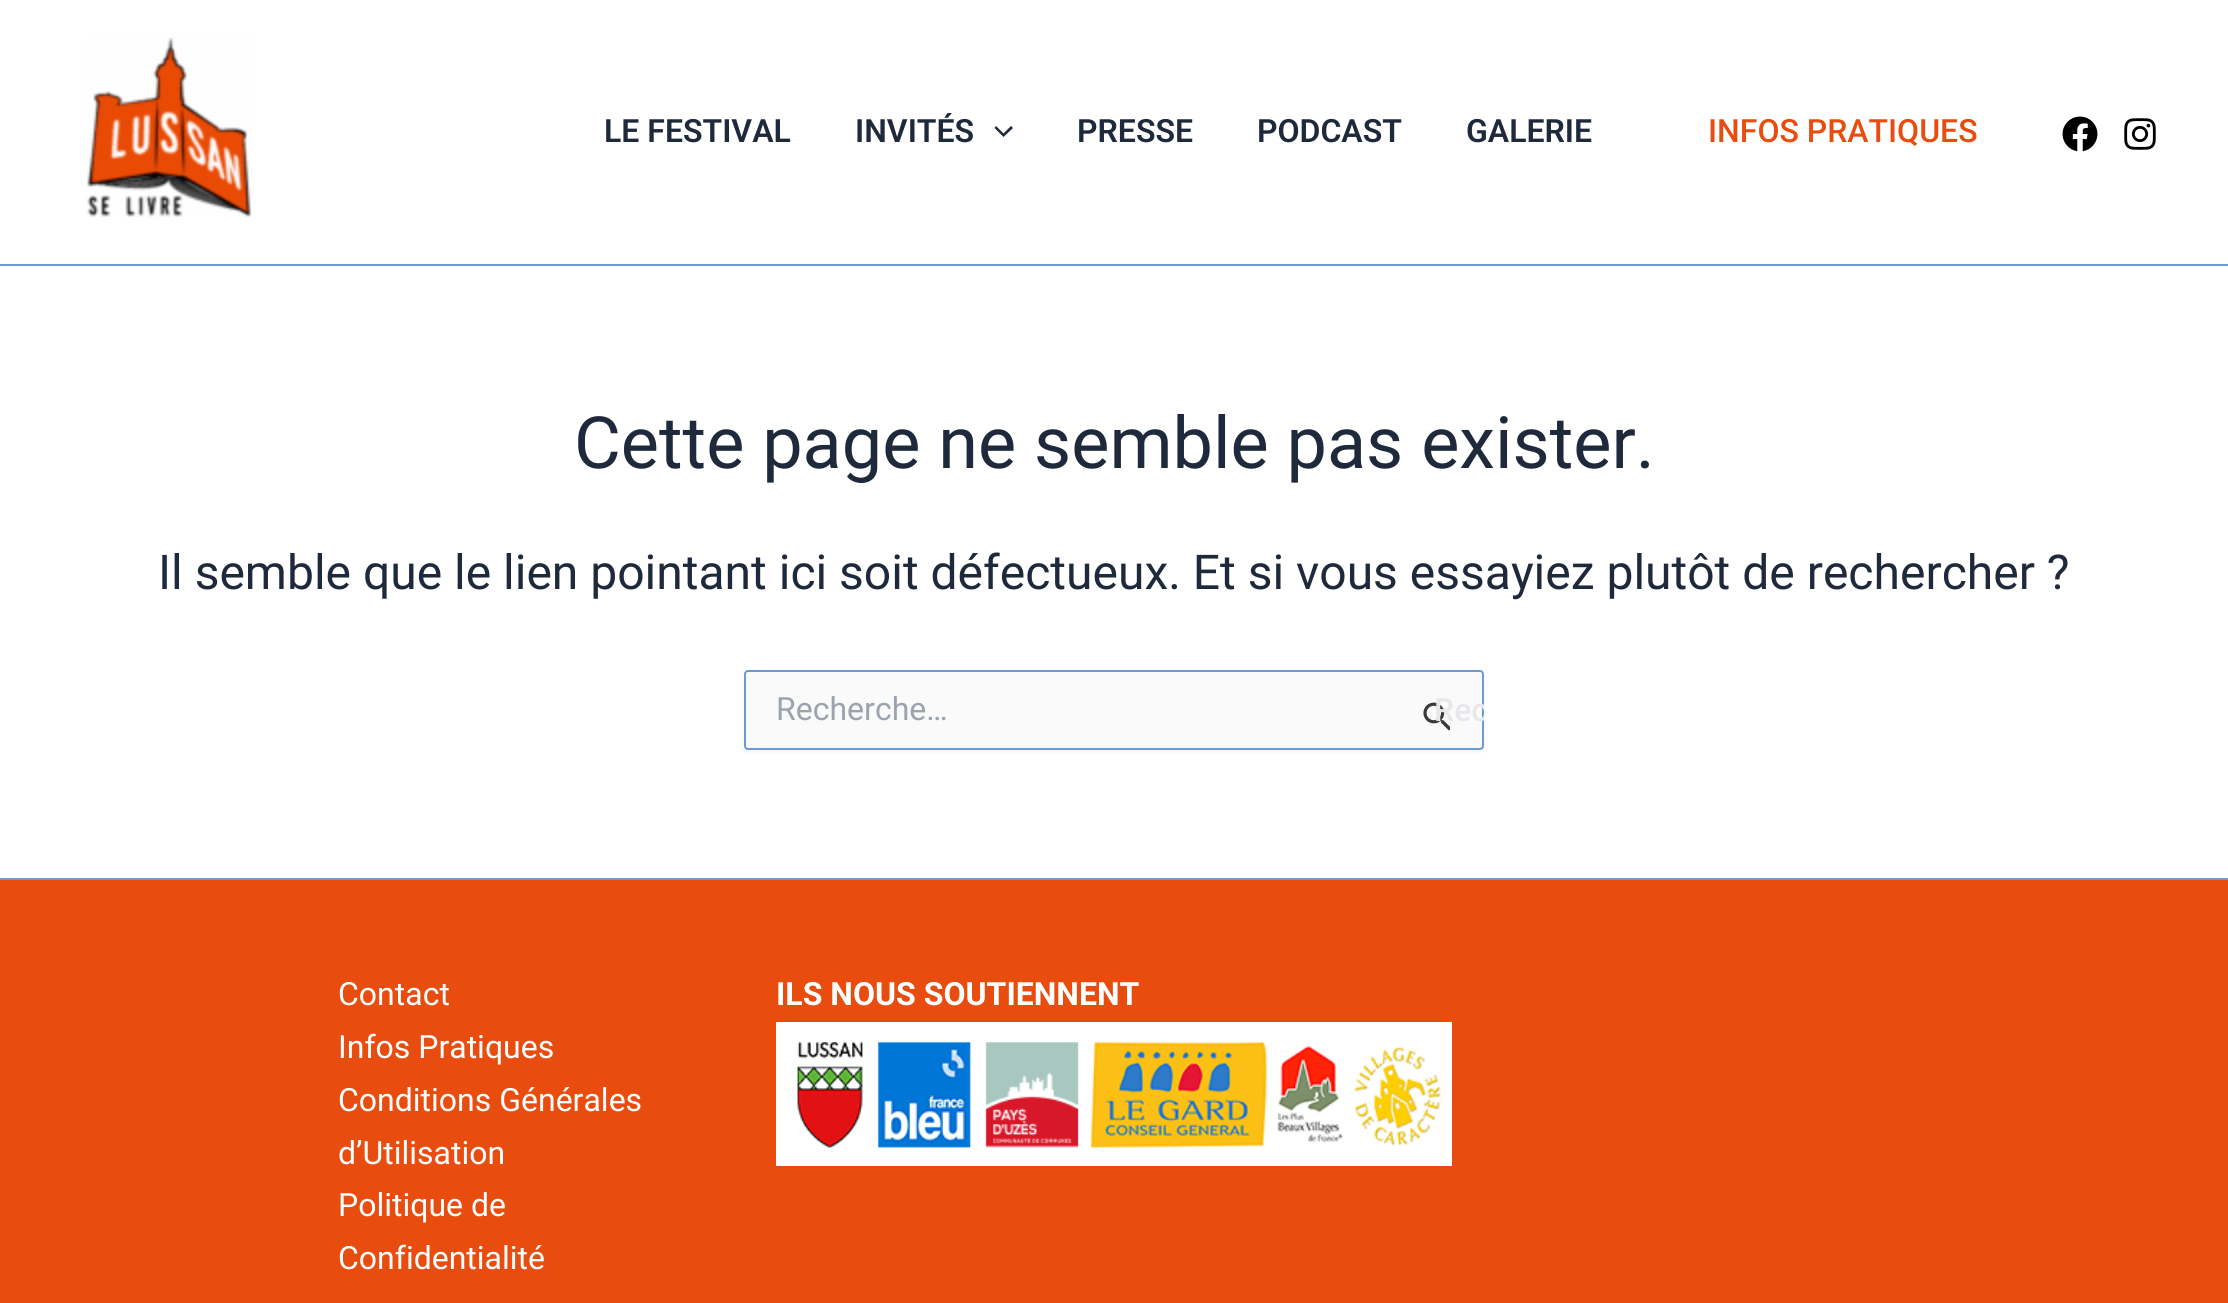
import math
import cairo

surface = cairo.ImageSurface(cairo.FORMAT_RGB24, 2228, 1303)
ctx = cairo.Context(surface)
options = cairo.FontOptions()
options.set_hint_metrics(cairo.HINT_METRICS_OFF)
options.set_hint_style(cairo.HINT_STYLE_NONE)
ctx.set_font_options(options)
ctx.set_miter_limit(4)


def round_rect(x, y, w, h, r):
    ctx.new_sub_path()
    for i, (u, v) in enumerate([(x + w - r, y + h - r), (x + r, y + h - r), (x + r, y + r), (x + w - r, y + r)]):
        ctx.arc(u, v, r, i * math.pi / 2, (i + 1) * math.pi / 2)
    ctx.close_path()


def shadow(x, y, w, h, r, blur, alpha):
    ctx.push_group_with_content(cairo.CONTENT_ALPHA)
    ctx.set_operator(cairo.OPERATOR_SOURCE)
    for i in range(15, -16, -2):
        e = blur * i / 6
        if min(w, h) + 2 * e > 0:
            ctx.set_source_rgba(0, 0, 0, alpha * math.erfc((i - 1) / 8.5) / 2)
            round_rect(x - e, y - e, w + 2 * e, h + 2 * e, max(0, min(r + e + blur * .6, min(w, h) / 2 + e)))
            ctx.fill()
    ctx.mask(ctx.pop_group())


def picture(path, x, y, w, h):
    ctx.save()
    ctx.set_source_surface(cairo.ImageSurface.create_from_png(path), x, y)
    ctx.rectangle(x, y, w, h)
    ctx.fill()
    ctx.restore()


ctx.set_source_rgb(1, 1, 1)
ctx.paint()
ctx.set_source_rgb(0.416, 0.608, 0.827)
ctx.rectangle(0, 264, 2228, 2)
ctx.fill()
picture("img1.png", 86, 37, 166, 180)
ctx.select_font_face("Roboto SemiBold")
ctx.set_font_size(32)
ctx.set_source_rgb(0.118, 0.161, 0.231)
ctx.move_to(604, 142)
ctx.show_text("LE FESTIVAL")
ctx.move_to(855, 142)
ctx.show_text("INVITÉS")
ctx.new_path()
ctx.move_to(994.5, 128)
ctx.line_to(1003.5, 137)
ctx.line_to(1013, 128)
ctx.line_to(1011, 126)
ctx.line_to(1003.5, 133.5)
ctx.line_to(996, 126)
ctx.close_path()
ctx.fill()
ctx.move_to(1077, 142)
ctx.show_text("PRESSE")
ctx.move_to(1257, 142)
ctx.show_text("PODCAST")
ctx.move_to(1466, 142)
ctx.show_text("GALERIE")
ctx.select_font_face("Roboto Medium")
ctx.set_source_rgb(0.91, 0.302, 0.059)
ctx.move_to(1708, 142)
ctx.show_text("INFOS PRATIQUES")
picture("img2.png", 2062, 116, 36, 36)
picture("img3.png", 2124, 118, 32, 32)
ctx.select_font_face("Roboto")
ctx.set_font_size(72)
ctx.set_source_rgb(0.118, 0.161, 0.231)
ctx.move_to(574, 468)
ctx.show_text("Cette page ne semble pas exister.")
ctx.set_font_size(48)
ctx.move_to(158, 589)
ctx.show_text("Il semble que le lien pointant ici soit défectueux. Et si vous essayiez plutôt de rechercher ?")
ctx.set_source_rgb(0, 0, 0)
shadow(744, 672, 740, 80, 4, 2, 0.05)
ctx.set_source_rgb(0.98, 0.98, 0.98)
round_rect(745, 671, 738, 78, 3)
ctx.fill_preserve()
ctx.set_source_rgb(0.416, 0.608, 0.827)
ctx.stroke()
ctx.set_font_size(32)
ctx.set_source_rgb(0.612, 0.639, 0.686)
ctx.move_to(776, 720)
ctx.show_text("Recherche…")
picture("img4.png", 1423, 702, 27, 29)
ctx.save()
round_rect(1394, 670, 90, 84, 4)
ctx.clip()
ctx.select_font_face("Roboto Medium")
ctx.set_source_rgb(0.902, 0.91, 0.918)
ctx.move_to(1434, 721)
ctx.show_text("Rec")
ctx.restore()
ctx.set_source_rgb(0.91, 0.302, 0.059)
ctx.rectangle(0, 880, 2228, 423)
ctx.fill()
ctx.set_source_rgb(0.416, 0.608, 0.827)
ctx.rectangle(0, 878, 2228, 2)
ctx.fill()
ctx.set_source_rgb(1, 1, 1)
ctx.move_to(338, 1005)
ctx.show_text("Contact")
ctx.move_to(338, 1058)
ctx.show_text("Infos Pratiques")
ctx.move_to(338, 1111)
ctx.show_text("Conditions Générales")
ctx.move_to(338, 1164)
ctx.show_text("d’Utilisation")
ctx.move_to(338, 1216)
ctx.show_text("Politique de")
ctx.move_to(338, 1269)
ctx.show_text("Confidentialité")
ctx.select_font_face("Roboto", cairo.FONT_SLANT_NORMAL, cairo.FONT_WEIGHT_BOLD)
ctx.move_to(776, 1005)
ctx.show_text("ILS NOUS SOUTIENNENT")
picture("img5.png", 776, 1022, 676, 144)
surface.write_to_png("page.png")
